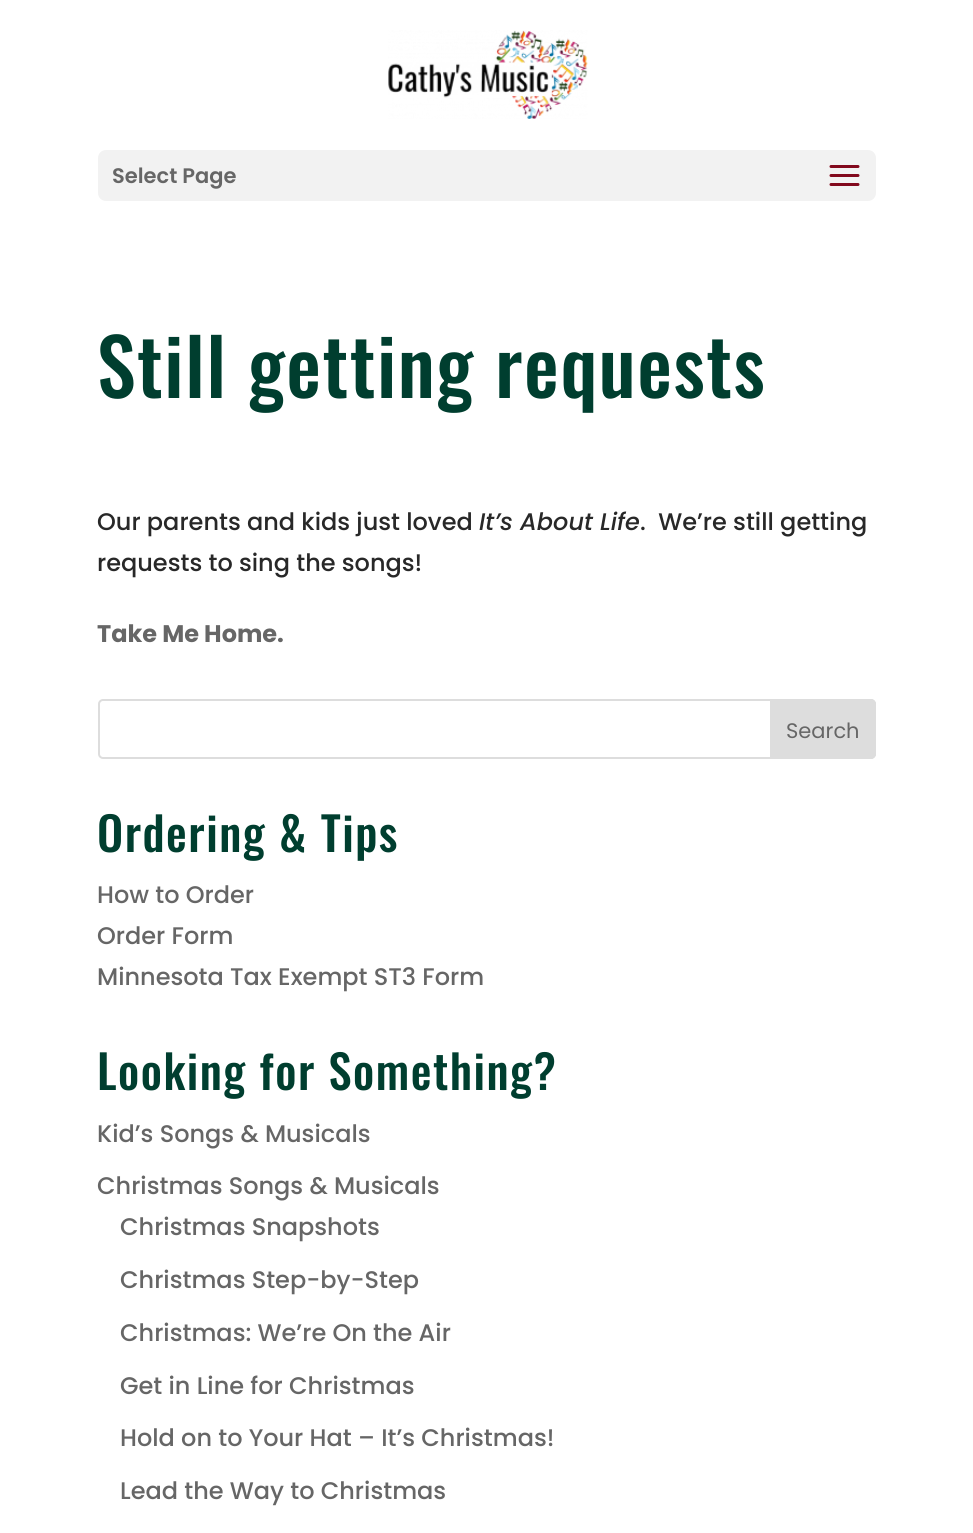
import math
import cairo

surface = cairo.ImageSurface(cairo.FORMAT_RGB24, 973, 1533)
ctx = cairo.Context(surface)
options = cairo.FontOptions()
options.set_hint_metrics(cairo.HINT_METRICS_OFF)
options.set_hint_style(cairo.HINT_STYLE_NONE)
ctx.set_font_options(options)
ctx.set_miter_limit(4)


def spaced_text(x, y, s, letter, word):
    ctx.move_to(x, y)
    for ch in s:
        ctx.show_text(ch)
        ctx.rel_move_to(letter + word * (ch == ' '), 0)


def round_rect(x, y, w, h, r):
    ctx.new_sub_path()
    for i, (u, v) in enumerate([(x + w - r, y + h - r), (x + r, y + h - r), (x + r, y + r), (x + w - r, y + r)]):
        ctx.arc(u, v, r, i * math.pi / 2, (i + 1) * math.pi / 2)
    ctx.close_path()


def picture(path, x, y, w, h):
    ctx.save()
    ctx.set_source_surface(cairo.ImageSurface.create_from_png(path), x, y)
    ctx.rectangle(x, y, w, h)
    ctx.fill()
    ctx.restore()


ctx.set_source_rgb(1, 1, 1)
ctx.paint()
picture("img1.png", 388, 30, 200, 89)
ctx.set_source_rgb(0.949, 0.949, 0.949)
round_rect(98, 150, 778, 51, 8)
ctx.fill()
ctx.select_font_face("Poppins SemiBold")
ctx.set_font_size(21)
ctx.set_source_rgb(0.4, 0.4, 0.4)
ctx.move_to(112, 183)
ctx.show_text("Select Page")
picture("img2.png", 829, 165, 31, 21)
ctx.select_font_face("Oswald Medium")
ctx.set_font_size(78)
ctx.set_source_rgb(0, 0.243, 0.184)
spaced_text(97, 398, "Still getting requests", 1.5, 0)
ctx.select_font_face("Poppins Medium")
ctx.set_font_size(24)
ctx.set_source_rgb(0.157, 0.157, 0.157)
ctx.move_to(97, 530)
ctx.show_text("Our parents and kids just loved")
ctx.select_font_face("Poppins Medium", cairo.FONT_SLANT_ITALIC)
ctx.move_to(479, 530)
ctx.show_text("It’s About Life")
ctx.select_font_face("Poppins Medium")
ctx.move_to(640, 530)
ctx.show_text(".  We’re still getting")
ctx.move_to(97, 571)
ctx.show_text("requests to sing the songs!")
ctx.select_font_face("Poppins", cairo.FONT_SLANT_NORMAL, cairo.FONT_WEIGHT_BOLD)
ctx.set_source_rgb(0.4, 0.4, 0.4)
ctx.move_to(97, 642)
ctx.show_text("Take Me Home.")
round_rect(99, 700, 776, 58, 4)
ctx.set_source_rgb(0.867, 0.867, 0.867)
ctx.stroke()
ctx.new_path()
ctx.move_to(771, 700)
ctx.line_to(871, 700)
ctx.curve_to(873, 700, 875, 702, 875, 704)
ctx.line_to(875, 754)
ctx.curve_to(875, 756, 873, 758, 871, 758)
ctx.line_to(771, 758)
ctx.close_path()
ctx.fill_preserve()
ctx.stroke()
ctx.select_font_face("Poppins")
ctx.set_font_size(21)
ctx.set_source_rgb(0.4, 0.4, 0.4)
ctx.move_to(786, 738)
ctx.show_text("Search")
ctx.select_font_face("Oswald Medium")
ctx.set_font_size(46.5)
ctx.set_source_rgb(0, 0.243, 0.184)
spaced_text(97, 852, "Ordering & Tips", 1.5, 0)
ctx.select_font_face("Poppins Medium")
ctx.set_font_size(24)
ctx.set_source_rgb(0.4, 0.4, 0.4)
ctx.move_to(97, 903)
ctx.show_text("How to Order")
ctx.move_to(97, 944)
ctx.show_text("Order Form")
ctx.move_to(97, 985)
ctx.show_text("Minnesota Tax Exempt ST3 Form")
ctx.select_font_face("Oswald Medium")
ctx.set_font_size(46.5)
ctx.set_source_rgb(0, 0.243, 0.184)
spaced_text(97, 1090, "Looking for Something?", 1.5, 0)
ctx.select_font_face("Poppins Medium")
ctx.set_font_size(24)
ctx.set_source_rgb(0.4, 0.4, 0.4)
ctx.move_to(97, 1142)
ctx.show_text("Kid’s Songs & Musicals")
ctx.move_to(97, 1194)
ctx.show_text("Christmas Songs & Musicals")
ctx.move_to(120, 1235)
ctx.show_text("Christmas Snapshots")
ctx.move_to(120, 1288)
ctx.show_text("Christmas Step-by-Step")
ctx.move_to(120, 1341)
ctx.show_text("Christmas: We’re On the Air")
ctx.move_to(120, 1394)
ctx.show_text("Get in Line for Christmas")
ctx.move_to(120, 1446)
ctx.show_text("Hold on to Your Hat – It’s Christmas!")
ctx.move_to(120, 1499)
ctx.show_text("Lead the Way to Christmas")
surface.write_to_png("page.png")
